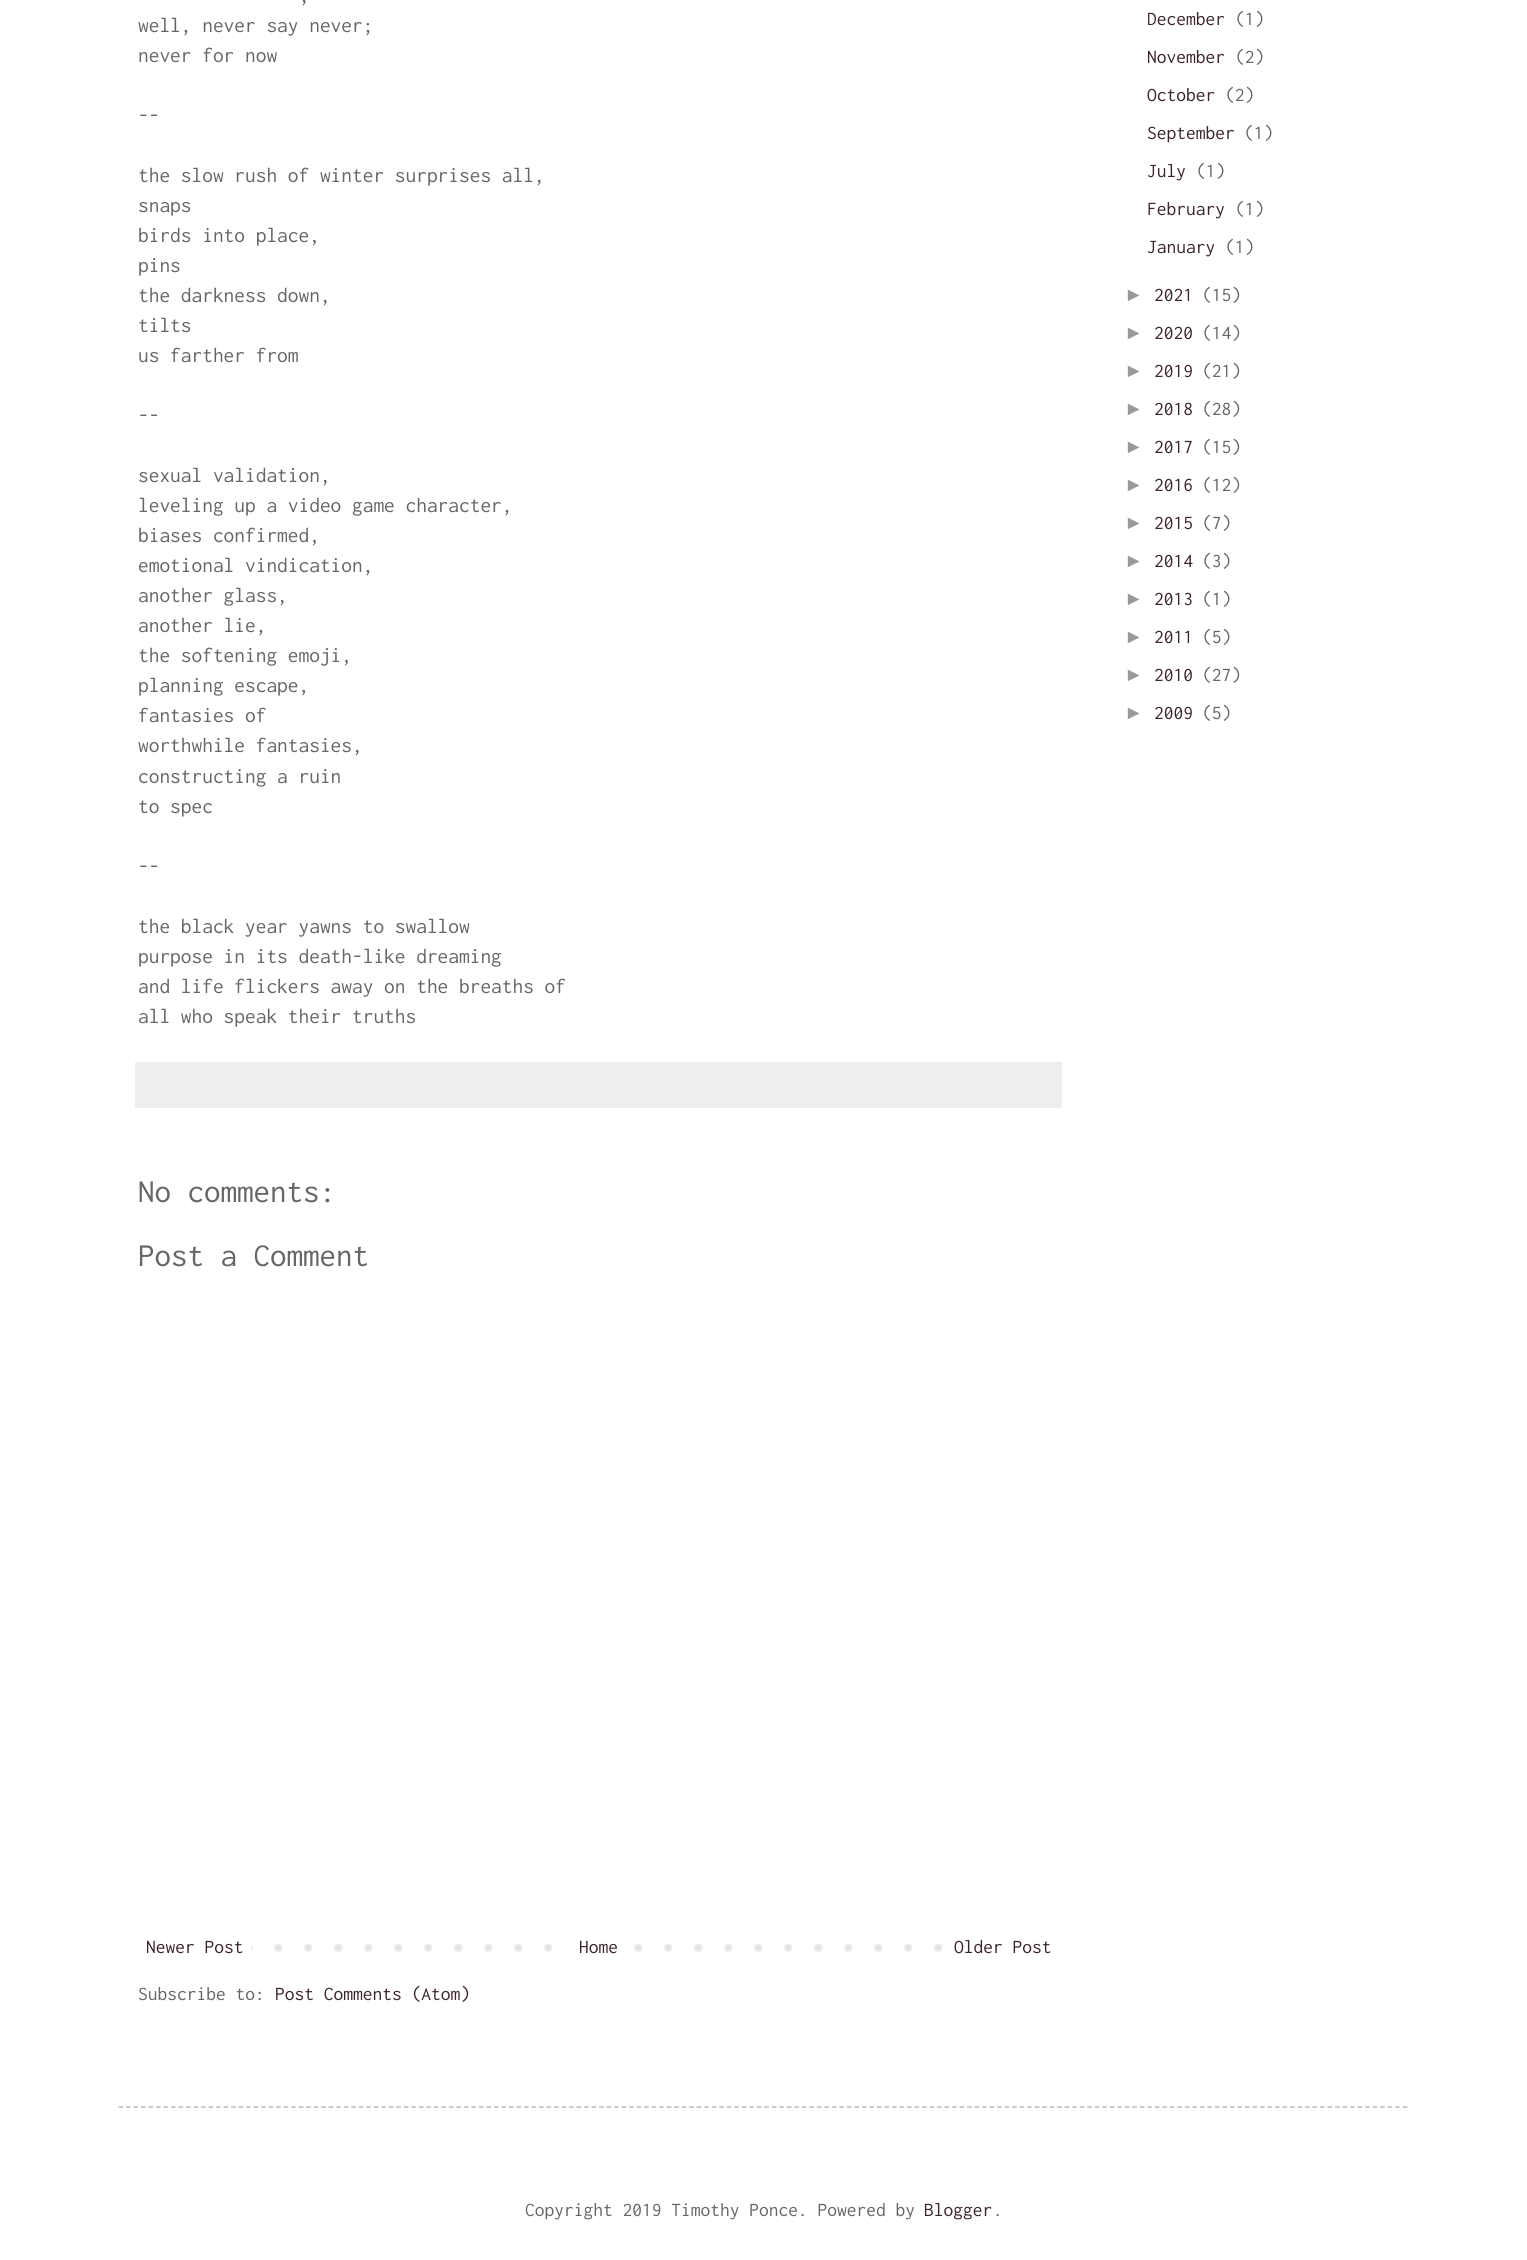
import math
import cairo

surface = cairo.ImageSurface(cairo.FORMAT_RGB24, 1527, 2260)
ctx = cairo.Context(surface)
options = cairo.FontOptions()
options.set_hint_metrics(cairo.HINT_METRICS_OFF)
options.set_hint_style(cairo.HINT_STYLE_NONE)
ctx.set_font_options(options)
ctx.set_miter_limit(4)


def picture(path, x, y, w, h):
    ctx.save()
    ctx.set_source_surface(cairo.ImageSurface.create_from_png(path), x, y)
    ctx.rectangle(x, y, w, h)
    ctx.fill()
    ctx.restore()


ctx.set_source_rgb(1, 1, 1)
ctx.paint()
ctx.select_font_face("Inconsolata")
ctx.set_font_size(21.4)
ctx.set_source_rgb(0.4, 0.4, 0.4)
ctx.move_to(299, 2)
ctx.show_text(",")
ctx.move_to(138, 32)
ctx.show_text("well, never say never;")
ctx.move_to(138, 62)
ctx.show_text("never for now")
ctx.move_to(138, 122)
ctx.show_text("--")
ctx.move_to(138, 182)
ctx.show_text("the slow rush of winter surprises all,")
ctx.move_to(138, 212)
ctx.show_text("snaps")
ctx.move_to(138, 242)
ctx.show_text("birds into place,")
ctx.move_to(138, 272)
ctx.show_text("pins")
ctx.move_to(138, 302)
ctx.show_text("the darkness down,")
ctx.move_to(138, 332)
ctx.show_text("tilts")
ctx.move_to(138, 362)
ctx.show_text("us farther from")
ctx.move_to(138, 422)
ctx.show_text("--")
ctx.move_to(138, 482)
ctx.show_text("sexual validation,")
ctx.move_to(138, 512)
ctx.show_text("leveling up a video game character,")
ctx.move_to(138, 542)
ctx.show_text("biases confirmed,")
ctx.move_to(138, 572)
ctx.show_text("emotional vindication,")
ctx.move_to(138, 602)
ctx.show_text("another glass,")
ctx.move_to(138, 632)
ctx.show_text("another lie,")
ctx.move_to(138, 662)
ctx.show_text("the softening emoji,")
ctx.move_to(138, 692)
ctx.show_text("planning escape,")
ctx.move_to(138, 722)
ctx.show_text("fantasies of")
ctx.move_to(138, 752)
ctx.show_text("worthwhile fantasies,")
ctx.move_to(138, 783)
ctx.show_text("constructing a ruin")
ctx.move_to(138, 813)
ctx.show_text("to spec")
ctx.move_to(138, 873)
ctx.show_text("--")
ctx.move_to(138, 933)
ctx.show_text("the black year yawns to swallow")
ctx.move_to(138, 963)
ctx.show_text("purpose in its death-like dreaming")
ctx.move_to(138, 993)
ctx.show_text("and life flickers away on the breaths of")
ctx.move_to(138, 1023)
ctx.show_text("all who speak their truths")
ctx.set_source_rgb(0.933, 0.933, 0.933)
ctx.rectangle(135, 1062, 927, 46)
ctx.fill()
ctx.set_font_size(33)
ctx.set_source_rgb(0.4, 0.4, 0.4)
ctx.move_to(138, 1202)
ctx.show_text("No comments:")
ctx.move_to(138, 1266)
ctx.show_text("Post a Comment")
picture("img1.png", 251, 1944, 692, 8)
ctx.set_font_size(19.5)
ctx.set_source_rgb(0.231, 0.137, 0.184)
ctx.move_to(146, 1953)
ctx.show_text("Newer Post")
ctx.set_source_rgb(1, 1, 1)
ctx.rectangle(574, 1944, 39, 8)
ctx.fill()
ctx.set_source_rgb(0.231, 0.137, 0.184)
ctx.move_to(579, 1953)
ctx.show_text("Home")
ctx.move_to(954, 1953)
ctx.show_text("Older Post")
ctx.set_source_rgb(0.4, 0.4, 0.4)
ctx.move_to(138, 2000)
ctx.show_text("Subscribe to:")
ctx.set_source_rgb(0.231, 0.137, 0.184)
ctx.move_to(275, 2000)
ctx.show_text("Post Comments (Atom)")
ctx.move_to(1147, 25)
ctx.show_text("December")
ctx.set_source_rgb(0.4, 0.4, 0.4)
ctx.move_to(1235, 25)
ctx.show_text("(1)")
ctx.set_source_rgb(0.231, 0.137, 0.184)
ctx.move_to(1147, 63)
ctx.show_text("November")
ctx.set_source_rgb(0.4, 0.4, 0.4)
ctx.move_to(1235, 63)
ctx.show_text("(2)")
ctx.set_source_rgb(0.231, 0.137, 0.184)
ctx.move_to(1147, 101)
ctx.show_text("October")
ctx.set_source_rgb(0.4, 0.4, 0.4)
ctx.move_to(1225, 101)
ctx.show_text("(2)")
ctx.set_source_rgb(0.231, 0.137, 0.184)
ctx.move_to(1147, 139)
ctx.show_text("September")
ctx.set_source_rgb(0.4, 0.4, 0.4)
ctx.move_to(1244, 139)
ctx.show_text("(1)")
ctx.set_source_rgb(0.231, 0.137, 0.184)
ctx.move_to(1147, 177)
ctx.show_text("July")
ctx.set_source_rgb(0.4, 0.4, 0.4)
ctx.move_to(1196, 177)
ctx.show_text("(1)")
ctx.set_source_rgb(0.231, 0.137, 0.184)
ctx.move_to(1147, 215)
ctx.show_text("February")
ctx.set_source_rgb(0.4, 0.4, 0.4)
ctx.move_to(1235, 215)
ctx.show_text("(1)")
ctx.set_source_rgb(0.231, 0.137, 0.184)
ctx.move_to(1147, 253)
ctx.show_text("January")
ctx.set_source_rgb(0.4, 0.4, 0.4)
ctx.move_to(1225, 253)
ctx.show_text("(1)")
ctx.select_font_face("Liberation Sans")
ctx.set_source_rgb(0.6, 0.6, 0.6)
ctx.move_to(1124, 301)
ctx.show_text("►")
ctx.select_font_face("Inconsolata")
ctx.set_source_rgb(0.231, 0.137, 0.184)
ctx.move_to(1154, 301)
ctx.show_text("2021")
ctx.set_source_rgb(0.4, 0.4, 0.4)
ctx.move_to(1202, 301)
ctx.show_text("(15)")
ctx.select_font_face("Liberation Sans")
ctx.set_source_rgb(0.6, 0.6, 0.6)
ctx.move_to(1124, 339)
ctx.show_text("►")
ctx.select_font_face("Inconsolata")
ctx.set_source_rgb(0.231, 0.137, 0.184)
ctx.move_to(1154, 339)
ctx.show_text("2020")
ctx.set_source_rgb(0.4, 0.4, 0.4)
ctx.move_to(1202, 339)
ctx.show_text("(14)")
ctx.select_font_face("Liberation Sans")
ctx.set_source_rgb(0.6, 0.6, 0.6)
ctx.move_to(1124, 377)
ctx.show_text("►")
ctx.select_font_face("Inconsolata")
ctx.set_source_rgb(0.231, 0.137, 0.184)
ctx.move_to(1154, 377)
ctx.show_text("2019")
ctx.set_source_rgb(0.4, 0.4, 0.4)
ctx.move_to(1202, 377)
ctx.show_text("(21)")
ctx.select_font_face("Liberation Sans")
ctx.set_source_rgb(0.6, 0.6, 0.6)
ctx.move_to(1124, 415)
ctx.show_text("►")
ctx.select_font_face("Inconsolata")
ctx.set_source_rgb(0.231, 0.137, 0.184)
ctx.move_to(1154, 415)
ctx.show_text("2018")
ctx.set_source_rgb(0.4, 0.4, 0.4)
ctx.move_to(1202, 415)
ctx.show_text("(28)")
ctx.select_font_face("Liberation Sans")
ctx.set_source_rgb(0.6, 0.6, 0.6)
ctx.move_to(1124, 453)
ctx.show_text("►")
ctx.select_font_face("Inconsolata")
ctx.set_source_rgb(0.231, 0.137, 0.184)
ctx.move_to(1154, 453)
ctx.show_text("2017")
ctx.set_source_rgb(0.4, 0.4, 0.4)
ctx.move_to(1202, 453)
ctx.show_text("(15)")
ctx.select_font_face("Liberation Sans")
ctx.set_source_rgb(0.6, 0.6, 0.6)
ctx.move_to(1124, 491)
ctx.show_text("►")
ctx.select_font_face("Inconsolata")
ctx.set_source_rgb(0.231, 0.137, 0.184)
ctx.move_to(1154, 491)
ctx.show_text("2016")
ctx.set_source_rgb(0.4, 0.4, 0.4)
ctx.move_to(1202, 491)
ctx.show_text("(12)")
ctx.select_font_face("Liberation Sans")
ctx.set_source_rgb(0.6, 0.6, 0.6)
ctx.move_to(1124, 529)
ctx.show_text("►")
ctx.select_font_face("Inconsolata")
ctx.set_source_rgb(0.231, 0.137, 0.184)
ctx.move_to(1154, 529)
ctx.show_text("2015")
ctx.set_source_rgb(0.4, 0.4, 0.4)
ctx.move_to(1202, 529)
ctx.show_text("(7)")
ctx.select_font_face("Liberation Sans")
ctx.set_source_rgb(0.6, 0.6, 0.6)
ctx.move_to(1124, 567)
ctx.show_text("►")
ctx.select_font_face("Inconsolata")
ctx.set_source_rgb(0.231, 0.137, 0.184)
ctx.move_to(1154, 567)
ctx.show_text("2014")
ctx.set_source_rgb(0.4, 0.4, 0.4)
ctx.move_to(1202, 567)
ctx.show_text("(3)")
ctx.select_font_face("Liberation Sans")
ctx.set_source_rgb(0.6, 0.6, 0.6)
ctx.move_to(1124, 605)
ctx.show_text("►")
ctx.select_font_face("Inconsolata")
ctx.set_source_rgb(0.231, 0.137, 0.184)
ctx.move_to(1154, 605)
ctx.show_text("2013")
ctx.set_source_rgb(0.4, 0.4, 0.4)
ctx.move_to(1202, 605)
ctx.show_text("(1)")
ctx.select_font_face("Liberation Sans")
ctx.set_source_rgb(0.6, 0.6, 0.6)
ctx.move_to(1124, 643)
ctx.show_text("►")
ctx.select_font_face("Inconsolata")
ctx.set_source_rgb(0.231, 0.137, 0.184)
ctx.move_to(1154, 643)
ctx.show_text("2011")
ctx.set_source_rgb(0.4, 0.4, 0.4)
ctx.move_to(1202, 643)
ctx.show_text("(5)")
ctx.select_font_face("Liberation Sans")
ctx.set_source_rgb(0.6, 0.6, 0.6)
ctx.move_to(1124, 681)
ctx.show_text("►")
ctx.select_font_face("Inconsolata")
ctx.set_source_rgb(0.231, 0.137, 0.184)
ctx.move_to(1154, 681)
ctx.show_text("2010")
ctx.set_source_rgb(0.4, 0.4, 0.4)
ctx.move_to(1202, 681)
ctx.show_text("(27)")
ctx.select_font_face("Liberation Sans")
ctx.set_source_rgb(0.6, 0.6, 0.6)
ctx.move_to(1124, 719)
ctx.show_text("►")
ctx.select_font_face("Inconsolata")
ctx.set_source_rgb(0.231, 0.137, 0.184)
ctx.move_to(1154, 719)
ctx.show_text("2009")
ctx.set_source_rgb(0.4, 0.4, 0.4)
ctx.move_to(1202, 719)
ctx.show_text("(5)")
ctx.new_path()
ctx.move_to(118.5, 2107)
ctx.line_to(1408.5, 2107)
ctx.set_source_rgb(0.733, 0.733, 0.733)
ctx.set_line_width(1.5)
ctx.set_dash([4.5, 3.01])
ctx.stroke()
ctx.set_source_rgb(0.4, 0.4, 0.4)
ctx.move_to(525, 2216)
ctx.show_text("Copyright 2019 Timothy Ponce. Powered by")
ctx.set_source_rgb(0.231, 0.137, 0.184)
ctx.move_to(924, 2216)
ctx.show_text("Blogger")
ctx.set_source_rgb(0.4, 0.4, 0.4)
ctx.move_to(993, 2216)
ctx.show_text(".")
surface.write_to_png("page.png")
